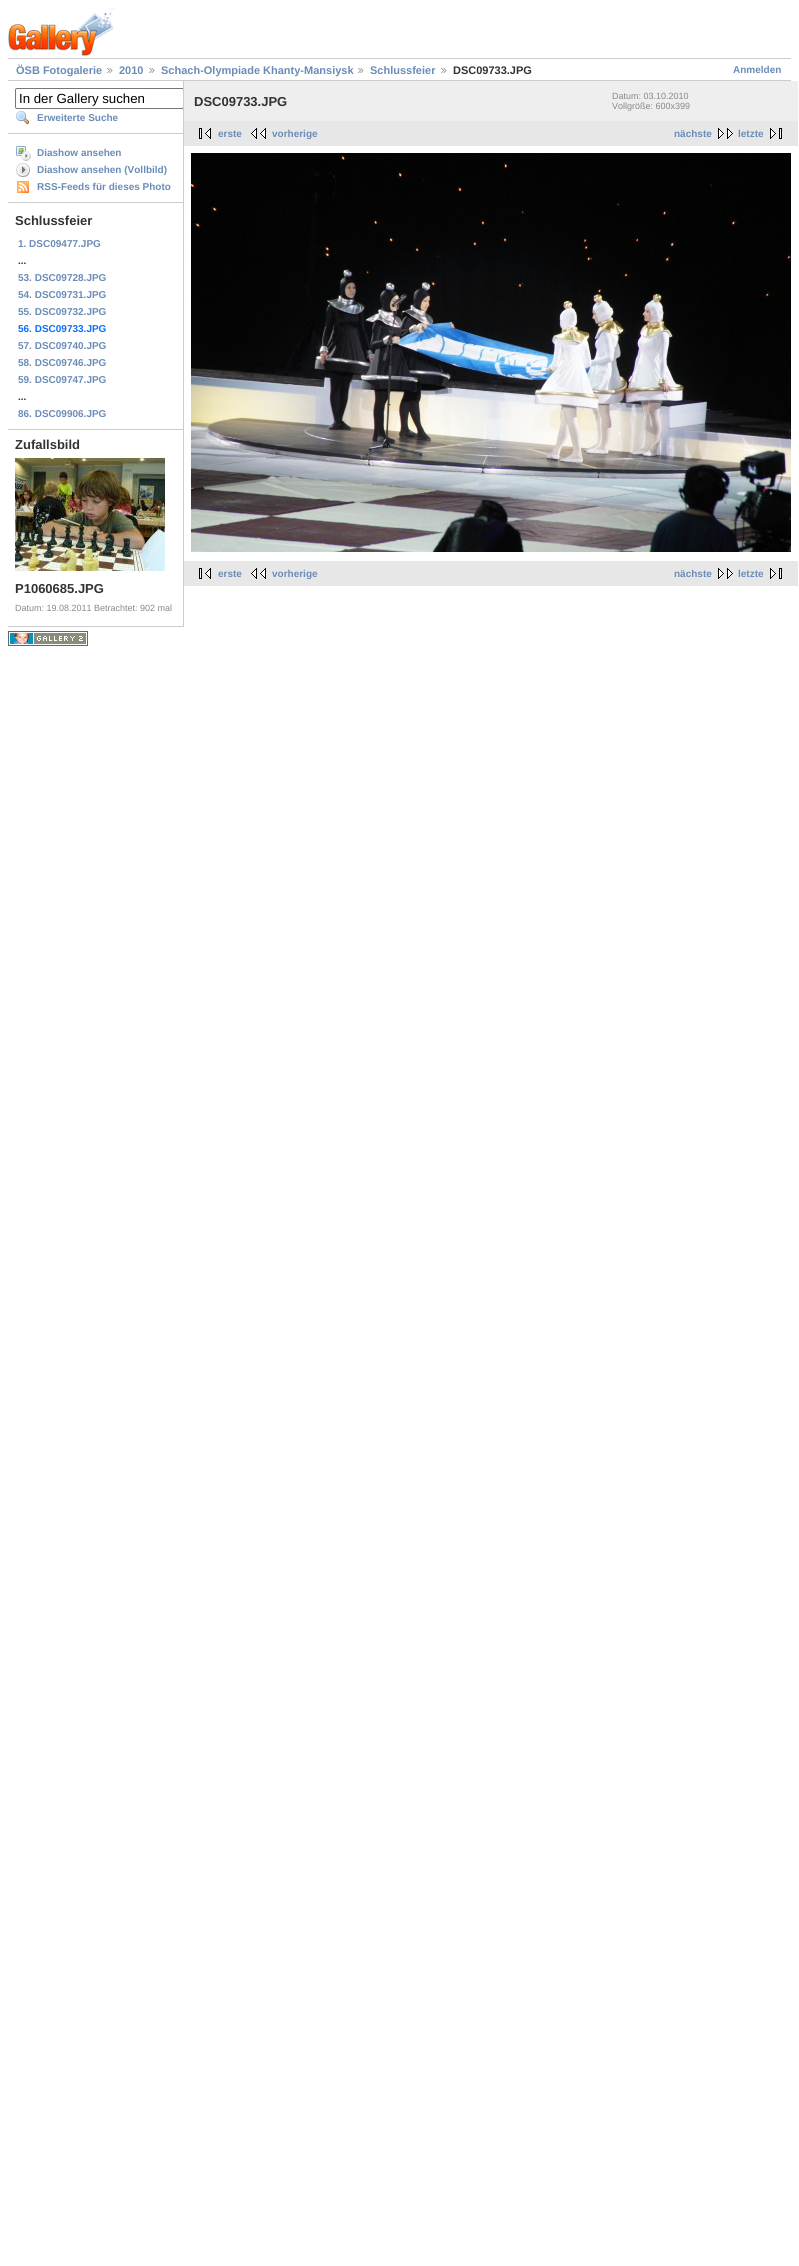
import math
import cairo

surface = cairo.ImageSurface(cairo.FORMAT_RGB24, 799, 2266)
ctx = cairo.Context(surface)
options = cairo.FontOptions()
options.set_hint_metrics(cairo.HINT_METRICS_OFF)
options.set_hint_style(cairo.HINT_STYLE_NONE)
ctx.set_font_options(options)
ctx.set_miter_limit(4)


def round_rect(x, y, w, h, r):
    ctx.new_sub_path()
    for i, (u, v) in enumerate([(x + w - r, y + h - r), (x + r, y + h - r), (x + r, y + r), (x + w - r, y + r)]):
        ctx.arc(u, v, r, i * math.pi / 2, (i + 1) * math.pi / 2)
    ctx.close_path()


def picture(path, x, y, w, h):
    ctx.save()
    ctx.set_source_surface(cairo.ImageSurface.create_from_png(path), x, y)
    ctx.rectangle(x, y, w, h)
    ctx.fill()
    ctx.restore()


ctx.set_source_rgb(1, 1, 1)
ctx.paint()
picture("img1.png", 8, 8, 107, 48)
ctx.set_source_rgb(0.8, 0.8, 0.8)
ctx.rectangle(8, 58, 783, 1)
ctx.fill()
ctx.rectangle(8, 80, 783, 1)
ctx.fill()
ctx.select_font_face("Liberation Sans", cairo.FONT_SLANT_NORMAL, cairo.FONT_WEIGHT_BOLD)
ctx.set_font_size(11)
ctx.set_source_rgb(0.42, 0.549, 0.718)
ctx.move_to(16, 74)
ctx.show_text("ÖSB Fotogalerie")
picture("img2.png", 107, 68, 6, 5)
ctx.move_to(119, 74)
ctx.show_text("2010")
picture("img2.png", 149, 68, 6, 5)
ctx.move_to(161, 74)
ctx.show_text("Schach-Olympiade Khanty-Mansiysk")
picture("img2.png", 358, 68, 6, 5)
ctx.move_to(370, 74)
ctx.show_text("Schlussfeier")
picture("img2.png", 441, 68, 6, 5)
ctx.set_source_rgb(0.2, 0.2, 0.2)
ctx.move_to(453, 74)
ctx.show_text("DSC09733.JPG")
ctx.set_font_size(10)
ctx.set_source_rgb(0.42, 0.549, 0.718)
ctx.move_to(733, 73)
ctx.show_text("Anmelden")
ctx.set_source_rgb(0.8, 0.8, 0.8)
ctx.rectangle(183, 81, 1, 546)
ctx.fill()
ctx.rectangle(8, 133, 175, 1)
ctx.fill()
ctx.save()
ctx.rectangle(8, 81, 175, 546)
ctx.clip()
round_rect(15.5, 88.5, 168, 20, 1.5)
ctx.set_source_rgb(0.463, 0.463, 0.463)
ctx.set_line_width(1)
ctx.stroke()
ctx.restore()
ctx.select_font_face("Liberation Sans")
ctx.set_font_size(13.25)
ctx.set_source_rgb(0, 0, 0)
ctx.move_to(19, 103)
ctx.show_text("In der Gallery suchen")
picture("img3.png", 16, 111, 13, 14)
ctx.select_font_face("Liberation Sans", cairo.FONT_SLANT_NORMAL, cairo.FONT_WEIGHT_BOLD)
ctx.set_font_size(10)
ctx.set_source_rgb(0.42, 0.549, 0.718)
ctx.move_to(37, 121)
ctx.show_text("Erweiterte Suche")
ctx.set_source_rgb(0.8, 0.8, 0.8)
ctx.rectangle(8, 202, 175, 1)
ctx.fill()
picture("img4.png", 16, 146, 15, 15)
ctx.set_source_rgb(0.42, 0.549, 0.718)
ctx.move_to(37, 156)
ctx.show_text("Diashow ansehen")
picture("img5.png", 16, 163, 14, 14)
ctx.move_to(37, 173)
ctx.show_text("Diashow ansehen (Vollbild)")
picture("img6.png", 17, 181, 12, 12)
ctx.move_to(37, 190)
ctx.show_text("RSS-Feeds für dieses Photo")
ctx.set_source_rgb(0.8, 0.8, 0.8)
ctx.rectangle(8, 429, 175, 1)
ctx.fill()
ctx.set_font_size(13)
ctx.set_source_rgb(0.2, 0.2, 0.2)
ctx.move_to(15, 225)
ctx.show_text("Schlussfeier")
ctx.set_font_size(10)
ctx.set_source_rgb(0.42, 0.549, 0.718)
ctx.move_to(18, 247)
ctx.show_text("1. DSC09477.JPG")
ctx.set_source_rgb(0.2, 0.2, 0.2)
ctx.move_to(18, 264)
ctx.show_text("...")
ctx.set_source_rgb(0.42, 0.549, 0.718)
ctx.move_to(18, 281)
ctx.show_text("53. DSC09728.JPG")
ctx.move_to(18, 298)
ctx.show_text("54. DSC09731.JPG")
ctx.move_to(18, 315)
ctx.show_text("55. DSC09732.JPG")
ctx.set_source_rgb(0.043, 0.424, 1)
ctx.move_to(18, 332)
ctx.show_text("56. DSC09733.JPG")
ctx.set_source_rgb(0.42, 0.549, 0.718)
ctx.move_to(18, 349)
ctx.show_text("57. DSC09740.JPG")
ctx.move_to(18, 366)
ctx.show_text("58. DSC09746.JPG")
ctx.move_to(18, 383)
ctx.show_text("59. DSC09747.JPG")
ctx.set_source_rgb(0.2, 0.2, 0.2)
ctx.move_to(18, 400)
ctx.show_text("...")
ctx.set_source_rgb(0.42, 0.549, 0.718)
ctx.move_to(18, 417)
ctx.show_text("86. DSC09906.JPG")
ctx.set_source_rgb(0.8, 0.8, 0.8)
ctx.rectangle(8, 626, 175, 1)
ctx.fill()
ctx.set_font_size(13)
ctx.set_source_rgb(0.2, 0.2, 0.2)
ctx.move_to(15, 449)
ctx.show_text("Zufallsbild")
picture("img7.png", 15, 458, 150, 113)
ctx.move_to(15, 593)
ctx.show_text("P1060685.JPG")
ctx.select_font_face("Liberation Sans")
ctx.set_font_size(9)
ctx.set_source_rgb(0.533, 0.533, 0.533)
ctx.move_to(15, 611)
ctx.show_text("Datum: 19.08.2011 Betrachtet: 902 mal")
ctx.set_source_rgb(0.933, 0.933, 0.933)
ctx.rectangle(184, 81, 614, 40)
ctx.fill()
ctx.select_font_face("Liberation Sans", cairo.FONT_SLANT_NORMAL, cairo.FONT_WEIGHT_BOLD)
ctx.set_font_size(13)
ctx.set_source_rgb(0.2, 0.2, 0.2)
ctx.move_to(194, 106)
ctx.show_text("DSC09733.JPG")
ctx.select_font_face("Liberation Sans")
ctx.set_font_size(9)
ctx.set_source_rgb(0.533, 0.533, 0.533)
ctx.move_to(612, 99)
ctx.show_text("Datum: 03.10.2010")
ctx.move_to(612, 109)
ctx.show_text("Vollgröße: 600x399")
ctx.set_source_rgb(0.906, 0.906, 0.906)
ctx.rectangle(184, 121, 614, 25)
ctx.fill()
picture("img8.png", 199, 128, 12, 11)
ctx.select_font_face("Liberation Sans", cairo.FONT_SLANT_NORMAL, cairo.FONT_WEIGHT_BOLD)
ctx.set_font_size(10)
ctx.set_source_rgb(0.42, 0.549, 0.718)
ctx.move_to(218, 137)
ctx.show_text("erste")
picture("img9.png", 251, 128, 15, 11)
ctx.move_to(272, 137)
ctx.show_text("vorherige")
ctx.move_to(674, 137)
ctx.show_text("nächste")
picture("img10.png", 718, 128, 15, 11)
ctx.move_to(738, 137)
ctx.show_text("letzte")
picture("img11.png", 770, 128, 12, 11)
picture("img12.png", 191, 153, 600, 399)
ctx.set_source_rgb(0.906, 0.906, 0.906)
ctx.rectangle(184, 561, 614, 25)
ctx.fill()
picture("img8.png", 199, 568, 12, 11)
ctx.set_source_rgb(0.42, 0.549, 0.718)
ctx.move_to(218, 577)
ctx.show_text("erste")
picture("img9.png", 251, 568, 15, 11)
ctx.move_to(272, 577)
ctx.show_text("vorherige")
ctx.move_to(674, 577)
ctx.show_text("nächste")
picture("img10.png", 718, 568, 15, 11)
ctx.move_to(738, 577)
ctx.show_text("letzte")
picture("img11.png", 770, 568, 12, 11)
picture("img13.png", 8, 631, 80, 15)
surface.write_to_png("page.png")
